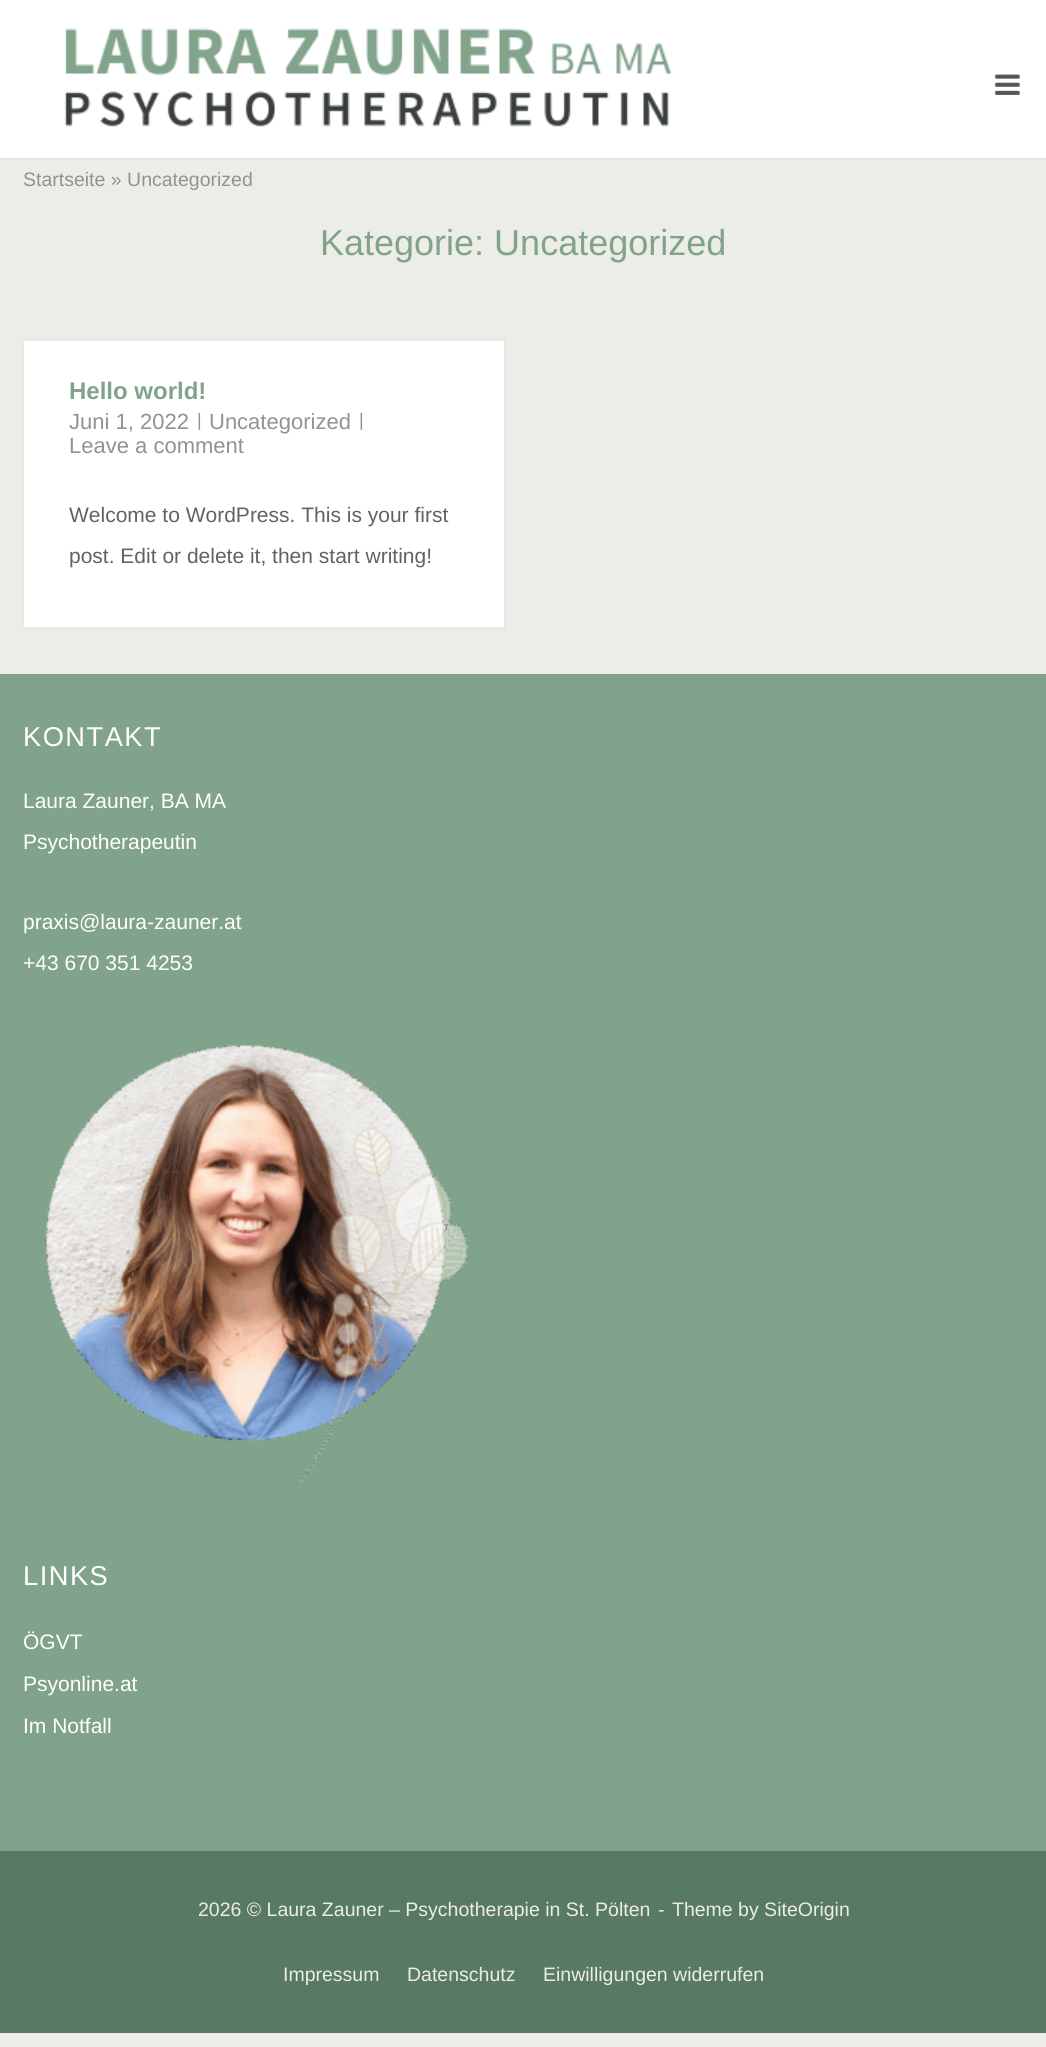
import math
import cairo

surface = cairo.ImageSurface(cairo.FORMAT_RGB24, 1046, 2047)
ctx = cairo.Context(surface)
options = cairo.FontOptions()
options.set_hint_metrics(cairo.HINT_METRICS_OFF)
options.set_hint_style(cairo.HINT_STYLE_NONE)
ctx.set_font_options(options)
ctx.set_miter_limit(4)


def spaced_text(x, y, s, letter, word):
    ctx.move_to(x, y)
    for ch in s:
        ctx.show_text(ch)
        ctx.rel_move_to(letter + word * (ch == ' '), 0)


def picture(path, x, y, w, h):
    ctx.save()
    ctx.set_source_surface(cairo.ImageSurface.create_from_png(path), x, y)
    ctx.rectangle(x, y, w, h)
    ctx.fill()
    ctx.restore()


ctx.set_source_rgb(0.922, 0.929, 0.902)
ctx.paint()
ctx.set_source_rgb(1, 1, 1)
ctx.rectangle(0, 0, 1046, 158)
ctx.fill()
ctx.set_source_rgb(0.902, 0.902, 0.902)
ctx.rectangle(0, 158, 1046, 2)
ctx.fill()
picture("img1.png", 64, 28, 608, 99)
picture("img2.png", 995, 74, 25, 21)
ctx.select_font_face("Liberation Sans")
ctx.set_font_size(19.5)
ctx.set_source_rgb(0.573, 0.573, 0.573)
ctx.move_to(23, 186)
ctx.show_text("Startseite » Uncategorized")
ctx.set_font_size(36)
ctx.set_source_rgb(0.51, 0.639, 0.545)
ctx.move_to(320, 255)
ctx.show_text("Kategorie: Uncategorized")
ctx.rectangle(24, 340, 481, 288)
ctx.set_source_rgb(0.902, 0.902, 0.902)
ctx.stroke()
ctx.set_source_rgb(1, 1, 1)
ctx.rectangle(24, 341, 480, 286)
ctx.fill()
ctx.select_font_face("Liberation Sans", cairo.FONT_SLANT_NORMAL, cairo.FONT_WEIGHT_BOLD)
ctx.set_font_size(24)
ctx.set_source_rgb(0.51, 0.639, 0.545)
ctx.move_to(69, 399)
ctx.show_text("Hello world!")
ctx.select_font_face("Liberation Sans")
ctx.set_font_size(22)
ctx.set_source_rgb(0.573, 0.573, 0.573)
ctx.move_to(69, 429)
ctx.show_text("Juni 1, 2022")
ctx.set_font_size(18)
ctx.move_to(197, 426)
ctx.show_text("|")
ctx.set_font_size(22)
ctx.move_to(209, 429)
ctx.show_text("Uncategorized")
ctx.set_font_size(18)
ctx.move_to(359, 426)
ctx.show_text("|")
ctx.set_font_size(22)
ctx.move_to(69, 453)
ctx.show_text("Leave a comment")
ctx.set_font_size(21)
ctx.set_source_rgb(0.384, 0.384, 0.384)
ctx.move_to(69, 522)
ctx.show_text("Welcome to WordPress. This is your first")
ctx.move_to(69, 563)
ctx.show_text("post. Edit or delete it, then start writing!")
ctx.set_source_rgb(0.51, 0.639, 0.545)
ctx.rectangle(0, 674, 1046, 1177)
ctx.fill()
ctx.set_font_size(27.25)
ctx.set_source_rgb(1, 1, 1)
spaced_text(23, 746, "KONTAKT", 1.5, 0)
ctx.set_font_size(21)
ctx.move_to(23, 808)
ctx.show_text("Laura Zauner, BA MA")
ctx.move_to(23, 849)
ctx.show_text("Psychotherapeutin")
ctx.move_to(23, 929)
ctx.show_text("praxis@laura-zauner.at")
ctx.move_to(23, 970)
ctx.show_text("+43 670 351 4253")
picture("img3.png", 45, 1045, 424, 438)
ctx.set_font_size(27.25)
spaced_text(23, 1585, "LINKS", 1.5, 0)
ctx.set_font_size(21)
ctx.move_to(23, 1649)
ctx.show_text("ÖGVT")
ctx.move_to(23, 1691)
ctx.show_text("Psyonline.at")
ctx.move_to(23, 1733)
ctx.show_text("Im Notfall")
ctx.set_source_rgb(0.345, 0.478, 0.384)
ctx.rectangle(0, 1851, 1046, 182)
ctx.fill()
ctx.set_font_size(19.5)
ctx.set_source_rgb(0.922, 0.929, 0.902)
ctx.move_to(198, 1916)
ctx.show_text("2026 © Laura Zauner – Psychotherapie in St. Pölten")
ctx.move_to(658, 1916)
ctx.show_text("-")
ctx.move_to(672, 1916)
ctx.show_text("Theme by SiteOrigin")
ctx.move_to(283, 1981)
ctx.show_text("Impressum")
ctx.move_to(407, 1981)
ctx.show_text("Datenschutz")
ctx.move_to(543, 1981)
ctx.show_text("Einwilligungen widerrufen")
surface.write_to_png("page.png")
